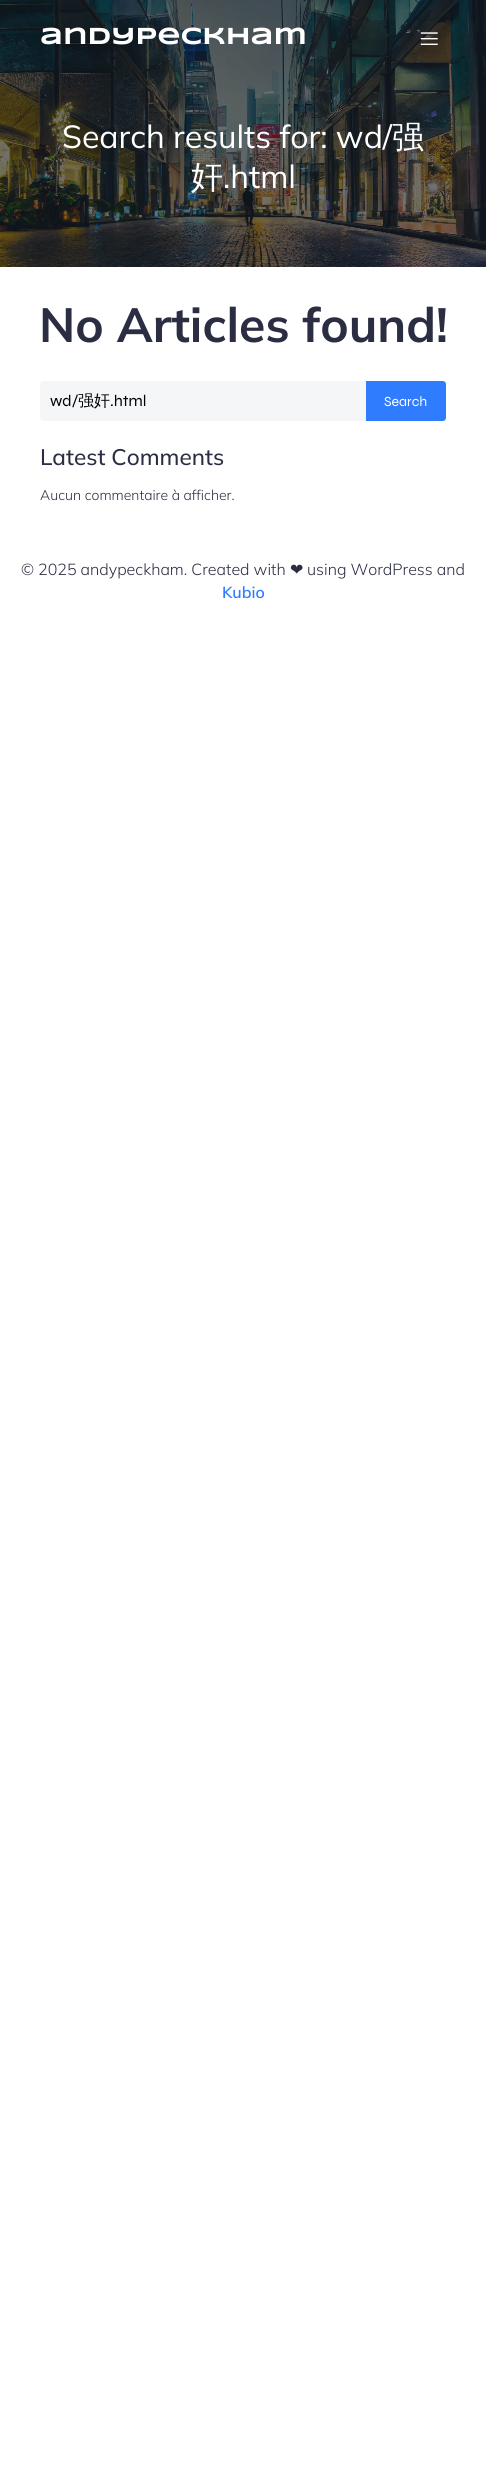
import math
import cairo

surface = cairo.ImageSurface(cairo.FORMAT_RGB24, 486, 2468)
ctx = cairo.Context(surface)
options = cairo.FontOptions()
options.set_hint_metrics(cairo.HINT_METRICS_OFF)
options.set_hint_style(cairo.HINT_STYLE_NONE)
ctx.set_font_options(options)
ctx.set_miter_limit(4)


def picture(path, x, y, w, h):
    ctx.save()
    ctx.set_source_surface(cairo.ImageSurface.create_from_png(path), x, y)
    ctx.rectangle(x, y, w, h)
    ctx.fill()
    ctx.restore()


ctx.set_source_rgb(1, 1, 1)
ctx.paint()
picture("img2.png", 0, 0, 486, 267)
ctx.select_font_face("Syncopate", cairo.FONT_SLANT_NORMAL, cairo.FONT_WEIGHT_BOLD)
ctx.set_font_size(24)
ctx.set_source_rgb(1, 1, 1)
ctx.move_to(40, 44)
ctx.show_text("andypeckham")
picture("img1.png", 420, 32, 18, 13)
ctx.select_font_face("Mulish")
ctx.set_font_size(32)
ctx.move_to(62, 148)
ctx.show_text("Search results for: wd/")
ctx.select_font_face("WenQuanYi Zen Hei Medium")
ctx.move_to(392, 148)
ctx.show_text("强")
ctx.move_to(191, 188)
ctx.show_text("奸")
ctx.select_font_face("Mulish")
ctx.move_to(223, 188)
ctx.show_text(".html")
ctx.select_font_face("Mulish", cairo.FONT_SLANT_NORMAL, cairo.FONT_WEIGHT_BOLD)
ctx.set_font_size(48)
ctx.set_source_rgb(0.169, 0.176, 0.259)
ctx.move_to(39, 342)
ctx.show_text("No Articles found!")
ctx.set_source_rgb(0.957, 0.961, 0.965)
ctx.new_path()
ctx.move_to(43, 381)
ctx.line_to(366, 381)
ctx.line_to(366, 421)
ctx.line_to(43, 421)
ctx.curve_to(41.5, 421, 40, 419.5, 40, 418)
ctx.line_to(40, 384)
ctx.curve_to(40, 382.5, 41.5, 381, 43, 381)
ctx.close_path()
ctx.fill()
ctx.select_font_face("Syne")
ctx.set_font_size(16)
ctx.set_source_rgb(0, 0, 0)
ctx.move_to(50, 406)
ctx.show_text("wd/")
ctx.select_font_face("WenQuanYi Zen Hei Medium")
ctx.move_to(78, 406)
ctx.show_text("强奸")
ctx.select_font_face("Syne")
ctx.move_to(110, 406)
ctx.show_text(".html")
ctx.set_source_rgb(0.184, 0.486, 1)
ctx.new_path()
ctx.move_to(366, 381)
ctx.line_to(443, 381)
ctx.curve_to(444.5, 381, 446, 382.5, 446, 384)
ctx.line_to(446, 418)
ctx.curve_to(446, 419.5, 444.5, 421, 443, 421)
ctx.line_to(366, 421)
ctx.close_path()
ctx.fill()
ctx.set_font_size(14)
ctx.set_source_rgb(1, 1, 1)
ctx.move_to(384, 406)
ctx.show_text("Search")
ctx.select_font_face("Mulish Medium")
ctx.set_font_size(22.5)
ctx.set_source_rgb(0.169, 0.176, 0.259)
ctx.move_to(40, 465)
ctx.show_text("Latest Comments")
ctx.select_font_face("Mulish Light")
ctx.set_font_size(14)
ctx.move_to(40, 500)
ctx.show_text("Aucun commentaire à afficher.")
ctx.set_font_size(16)
ctx.move_to(21, 575)
ctx.show_text("© 2025 andypeckham. Created with")
ctx.select_font_face("DejaVu Sans")
ctx.move_to(290, 575)
ctx.show_text("❤")
ctx.select_font_face("Mulish Light")
ctx.move_to(307, 575)
ctx.show_text("using WordPress and")
ctx.select_font_face("Mulish SemiBold")
ctx.set_source_rgb(0.184, 0.486, 1)
ctx.move_to(222, 598)
ctx.show_text("Kubio")
surface.write_to_png("page.png")
